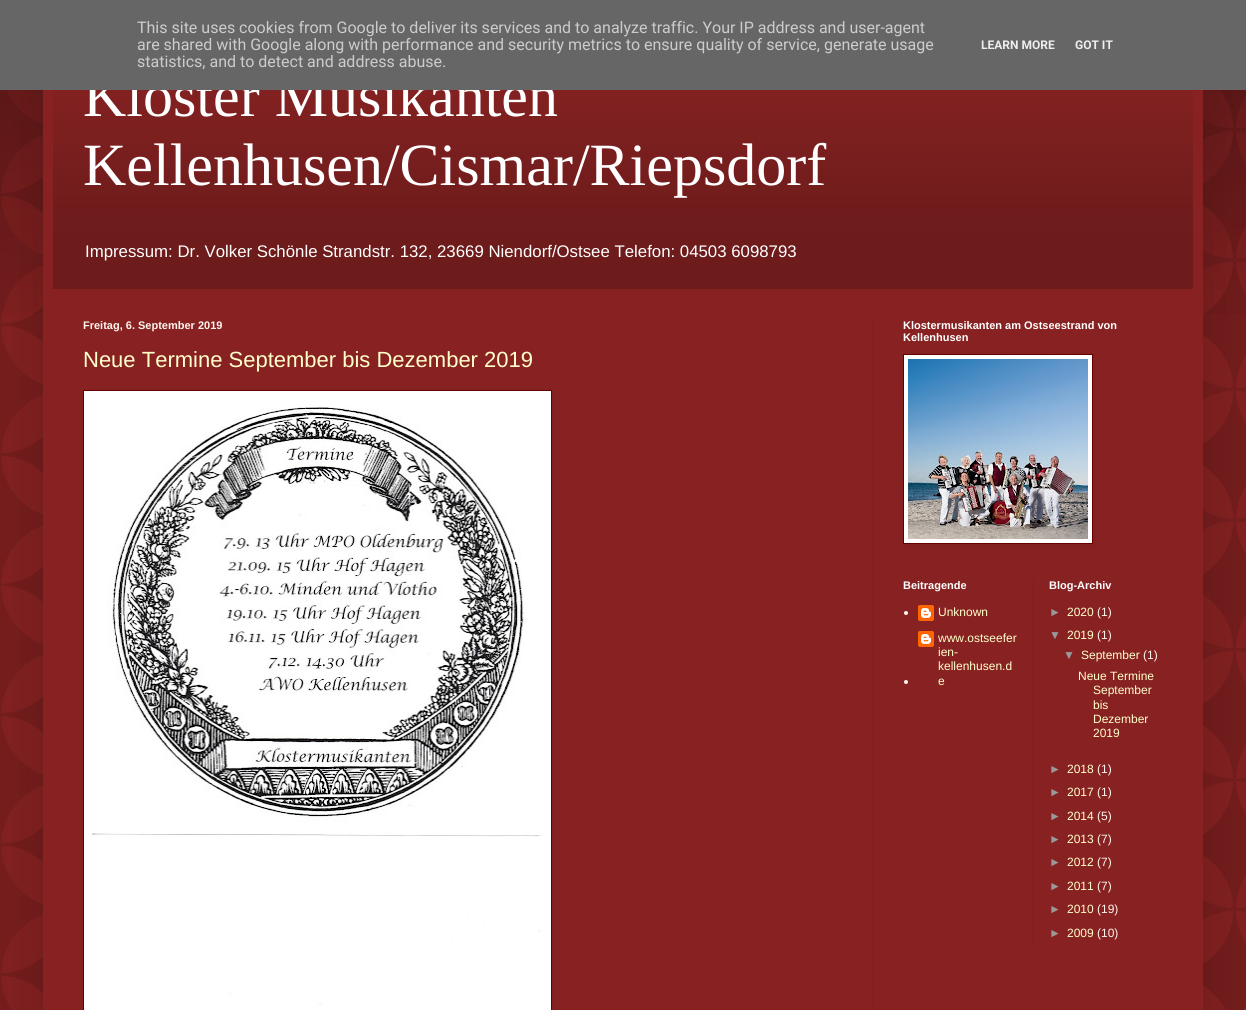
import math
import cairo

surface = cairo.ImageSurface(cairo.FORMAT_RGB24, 1246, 1010)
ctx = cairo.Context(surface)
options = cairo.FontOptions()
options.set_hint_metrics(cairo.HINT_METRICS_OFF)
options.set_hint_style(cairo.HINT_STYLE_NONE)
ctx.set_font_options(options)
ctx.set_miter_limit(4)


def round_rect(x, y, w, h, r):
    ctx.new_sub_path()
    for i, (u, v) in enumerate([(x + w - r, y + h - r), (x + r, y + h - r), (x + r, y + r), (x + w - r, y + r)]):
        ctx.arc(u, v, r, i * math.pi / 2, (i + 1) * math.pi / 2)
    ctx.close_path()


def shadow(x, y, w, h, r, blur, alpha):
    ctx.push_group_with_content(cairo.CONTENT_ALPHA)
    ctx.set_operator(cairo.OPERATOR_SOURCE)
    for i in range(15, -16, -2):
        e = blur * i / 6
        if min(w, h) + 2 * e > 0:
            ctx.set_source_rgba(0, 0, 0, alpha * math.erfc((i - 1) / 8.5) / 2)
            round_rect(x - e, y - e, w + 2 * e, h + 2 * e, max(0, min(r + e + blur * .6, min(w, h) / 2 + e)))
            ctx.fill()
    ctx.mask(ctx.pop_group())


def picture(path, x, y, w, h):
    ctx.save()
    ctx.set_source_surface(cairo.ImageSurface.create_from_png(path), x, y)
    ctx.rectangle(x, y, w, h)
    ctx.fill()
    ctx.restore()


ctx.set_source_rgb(0.533, 0.133, 0.133)
ctx.paint()
picture("img1.png", 0, 90, 1246, 920)
picture("img6.png", 0, 90, 1246, 224)
ctx.set_source_rgb(0, 0, 0)
shadow(43, 30, 1160, 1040, 0, 20, 0.15)
ctx.set_source_rgb(0.533, 0.133, 0.133)
ctx.rectangle(43, 90, 1160, 920)
ctx.fill()
picture("img2.png", 53, 90, 1140, 199)
ctx.select_font_face("Liberation Serif")
ctx.set_font_size(60)
ctx.set_source_rgb(1, 1, 1)
ctx.move_to(83, 116)
ctx.show_text("Kloster Musikanten")
ctx.set_source_rgb(0.4, 0.4, 0.4)
ctx.rectangle(0, 0, 1246, 90)
ctx.fill()
ctx.select_font_face("Roboto")
ctx.set_font_size(16)
ctx.set_source_rgb(0.8, 0.8, 0.8)
ctx.move_to(137, 33)
ctx.show_text("This site uses cookies from Google to deliver its services and to analyze traffic. Your IP address and user-agent")
ctx.move_to(137, 50)
ctx.show_text("are shared with Google along with performance and security metrics to ensure quality of service, generate usage")
ctx.move_to(137, 67)
ctx.show_text("statistics, and to detect and address abuse.")
ctx.select_font_face("Roboto", cairo.FONT_SLANT_NORMAL, cairo.FONT_WEIGHT_BOLD)
ctx.set_font_size(12)
ctx.set_source_rgb(0.933, 0.933, 0.933)
ctx.move_to(981, 49)
ctx.show_text("LEARN MORE")
ctx.move_to(1075, 49)
ctx.show_text("GOT IT")
ctx.select_font_face("Liberation Serif")
ctx.set_font_size(60)
ctx.set_source_rgb(1, 1, 1)
ctx.move_to(83, 185)
ctx.show_text("Kellenhusen/Cismar/Riepsdorf")
ctx.select_font_face("Liberation Sans")
ctx.set_font_size(16.8)
ctx.move_to(85, 257)
ctx.show_text("Impressum: Dr. Volker Schönle Strandstr. 132, 23669 Niendorf/Ostsee Telefon: 04503 6098793")
ctx.set_source_rgb(0.467, 0.133, 0.133)
ctx.rectangle(873, 319, 1, 691)
ctx.fill()
ctx.select_font_face("Liberation Sans", cairo.FONT_SLANT_NORMAL, cairo.FONT_WEIGHT_BOLD)
ctx.set_font_size(11)
ctx.set_source_rgb(1, 0.961, 0.933)
ctx.move_to(83, 329)
ctx.show_text("Freitag, 6. September 2019")
ctx.select_font_face("Liberation Sans")
ctx.set_font_size(22)
ctx.set_source_rgb(1, 1, 0.8)
ctx.move_to(83, 367)
ctx.show_text("Neue Termine September bis Dezember 2019")
ctx.set_source_rgb(0, 0, 0)
shadow(84, 391, 469, 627, 0, 2.5, 0.1)
ctx.set_source_rgb(1, 1, 1)
ctx.rectangle(83.5, 390.5, 468, 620)
ctx.fill_preserve()
ctx.set_source_rgb(0.4, 0, 0)
ctx.set_line_width(1)
ctx.stroke()
picture("img3.png", 92, 407, 449, 600)
ctx.select_font_face("Liberation Sans", cairo.FONT_SLANT_NORMAL, cairo.FONT_WEIGHT_BOLD)
ctx.set_font_size(11)
ctx.set_source_rgb(1, 1, 1)
ctx.move_to(903, 329)
ctx.show_text("Klostermusikanten am Ostseestrand von")
ctx.move_to(903, 341)
ctx.show_text("Kellenhusen")
ctx.set_source_rgb(0, 0, 0)
shadow(904, 355, 190, 190, 0, 2.5, 0.1)
ctx.set_source_rgb(1, 1, 1)
ctx.rectangle(903.5, 354.5, 189, 189)
ctx.fill_preserve()
ctx.set_source_rgb(0.4, 0, 0)
ctx.stroke()
picture("img4.png", 908, 359, 180, 180)
ctx.set_source_rgb(1, 1, 1)
ctx.move_to(903, 589)
ctx.show_text("Beitragende")
ctx.set_source_rgb(1, 0.961, 0.933)
ctx.new_path()
ctx.arc(906, 613, 2, 0, 2 * math.pi)
ctx.fill()
picture("img5.png", 918, 605, 16, 16)
ctx.select_font_face("Liberation Sans")
ctx.set_font_size(12)
ctx.set_source_rgb(1, 1, 0.8)
ctx.move_to(938, 616)
ctx.show_text("Unknown")
ctx.set_source_rgb(1, 0.961, 0.933)
ctx.new_path()
ctx.arc(906, 682, 2, 0, 2 * math.pi)
ctx.fill()
picture("img5.png", 918, 631, 16, 16)
ctx.set_source_rgb(1, 1, 0.8)
ctx.move_to(938, 642)
ctx.show_text("www.ostseefer")
ctx.move_to(938, 656)
ctx.show_text("ien-")
ctx.move_to(938, 670)
ctx.show_text("kellenhusen.d")
ctx.move_to(938, 685)
ctx.show_text("e")
ctx.set_source_rgb(0.467, 0.133, 0.133)
ctx.rectangle(1033, 579, 1, 367)
ctx.fill()
ctx.select_font_face("Liberation Sans", cairo.FONT_SLANT_NORMAL, cairo.FONT_WEIGHT_BOLD)
ctx.set_font_size(11)
ctx.set_source_rgb(1, 1, 1)
ctx.move_to(1049, 589)
ctx.show_text("Blog-Archiv")
ctx.select_font_face("Liberation Sans")
ctx.set_font_size(12)
ctx.set_source_rgb(0.6, 0.6, 0.6)
ctx.move_to(1049, 616)
ctx.show_text("►")
ctx.set_source_rgb(1, 1, 0.8)
ctx.move_to(1067, 616)
ctx.show_text("2020")
ctx.set_source_rgb(1, 0.961, 0.933)
ctx.move_to(1097, 616)
ctx.show_text("(1)")
ctx.set_source_rgb(0.6, 0.6, 0.6)
ctx.move_to(1049, 639)
ctx.show_text("▼")
ctx.set_source_rgb(1, 1, 0.8)
ctx.move_to(1067, 639)
ctx.show_text("2019")
ctx.set_source_rgb(1, 0.961, 0.933)
ctx.move_to(1097, 639)
ctx.show_text("(1)")
ctx.set_source_rgb(0.6, 0.6, 0.6)
ctx.move_to(1063, 659)
ctx.show_text("▼")
ctx.set_source_rgb(1, 1, 0.8)
ctx.move_to(1081, 659)
ctx.show_text("September")
ctx.set_source_rgb(1, 0.961, 0.933)
ctx.move_to(1143, 659)
ctx.show_text("(1)")
ctx.set_source_rgb(1, 1, 0.8)
ctx.move_to(1078, 680)
ctx.show_text("Neue Termine")
ctx.move_to(1093, 694)
ctx.show_text("September")
ctx.move_to(1093, 709)
ctx.show_text("bis")
ctx.move_to(1093, 723)
ctx.show_text("Dezember")
ctx.move_to(1093, 737)
ctx.show_text("2019")
ctx.set_source_rgb(0.6, 0.6, 0.6)
ctx.move_to(1049, 773)
ctx.show_text("►")
ctx.set_source_rgb(1, 1, 0.8)
ctx.move_to(1067, 773)
ctx.show_text("2018")
ctx.set_source_rgb(1, 0.961, 0.933)
ctx.move_to(1097, 773)
ctx.show_text("(1)")
ctx.set_source_rgb(0.6, 0.6, 0.6)
ctx.move_to(1049, 796)
ctx.show_text("►")
ctx.set_source_rgb(1, 1, 0.8)
ctx.move_to(1067, 796)
ctx.show_text("2017")
ctx.set_source_rgb(1, 0.961, 0.933)
ctx.move_to(1097, 796)
ctx.show_text("(1)")
ctx.set_source_rgb(0.6, 0.6, 0.6)
ctx.move_to(1049, 820)
ctx.show_text("►")
ctx.set_source_rgb(1, 1, 0.8)
ctx.move_to(1067, 820)
ctx.show_text("2014")
ctx.set_source_rgb(1, 0.961, 0.933)
ctx.move_to(1097, 820)
ctx.show_text("(5)")
ctx.set_source_rgb(0.6, 0.6, 0.6)
ctx.move_to(1049, 843)
ctx.show_text("►")
ctx.set_source_rgb(1, 1, 0.8)
ctx.move_to(1067, 843)
ctx.show_text("2013")
ctx.set_source_rgb(1, 0.961, 0.933)
ctx.move_to(1097, 843)
ctx.show_text("(7)")
ctx.set_source_rgb(0.6, 0.6, 0.6)
ctx.move_to(1049, 866)
ctx.show_text("►")
ctx.set_source_rgb(1, 1, 0.8)
ctx.move_to(1067, 866)
ctx.show_text("2012")
ctx.set_source_rgb(1, 0.961, 0.933)
ctx.move_to(1097, 866)
ctx.show_text("(7)")
ctx.set_source_rgb(0.6, 0.6, 0.6)
ctx.move_to(1049, 890)
ctx.show_text("►")
ctx.set_source_rgb(1, 1, 0.8)
ctx.move_to(1067, 890)
ctx.show_text("2011")
ctx.set_source_rgb(1, 0.961, 0.933)
ctx.move_to(1097, 890)
ctx.show_text("(7)")
ctx.set_source_rgb(0.6, 0.6, 0.6)
ctx.move_to(1049, 913)
ctx.show_text("►")
ctx.set_source_rgb(1, 1, 0.8)
ctx.move_to(1067, 913)
ctx.show_text("2010")
ctx.set_source_rgb(1, 0.961, 0.933)
ctx.move_to(1097, 913)
ctx.show_text("(19)")
ctx.set_source_rgb(0.6, 0.6, 0.6)
ctx.move_to(1049, 937)
ctx.show_text("►")
ctx.set_source_rgb(1, 1, 0.8)
ctx.move_to(1067, 937)
ctx.show_text("2009")
ctx.set_source_rgb(1, 0.961, 0.933)
ctx.move_to(1097, 937)
ctx.show_text("(10)")
surface.write_to_png("page.png")
